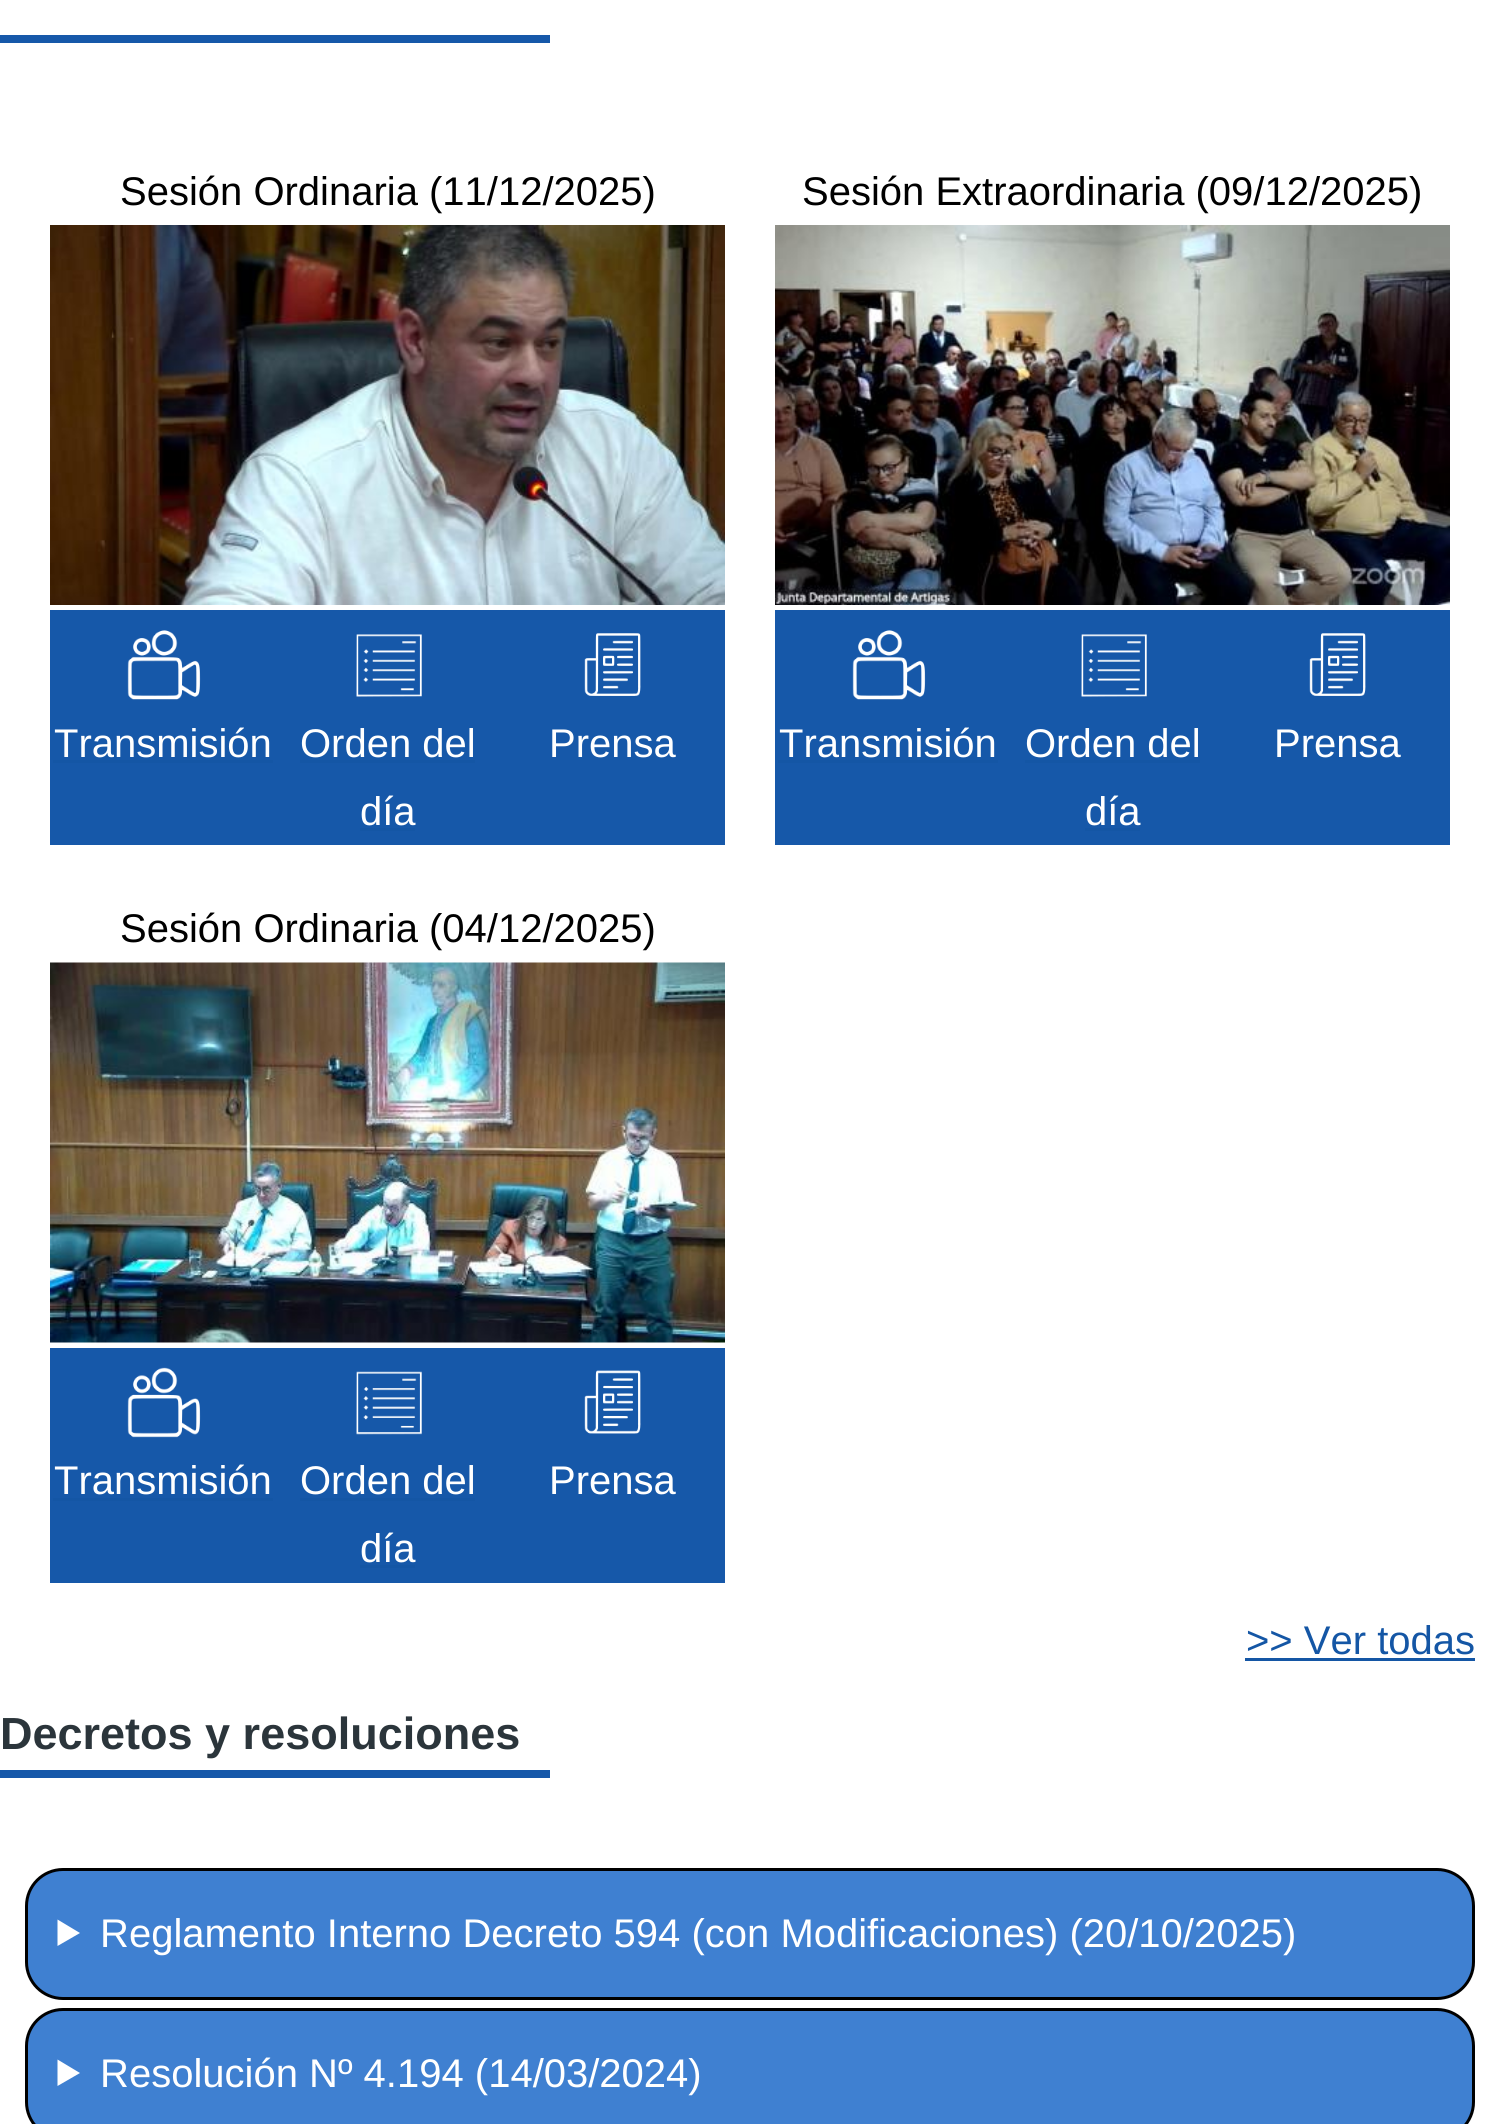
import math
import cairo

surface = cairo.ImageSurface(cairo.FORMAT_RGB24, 1499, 2124)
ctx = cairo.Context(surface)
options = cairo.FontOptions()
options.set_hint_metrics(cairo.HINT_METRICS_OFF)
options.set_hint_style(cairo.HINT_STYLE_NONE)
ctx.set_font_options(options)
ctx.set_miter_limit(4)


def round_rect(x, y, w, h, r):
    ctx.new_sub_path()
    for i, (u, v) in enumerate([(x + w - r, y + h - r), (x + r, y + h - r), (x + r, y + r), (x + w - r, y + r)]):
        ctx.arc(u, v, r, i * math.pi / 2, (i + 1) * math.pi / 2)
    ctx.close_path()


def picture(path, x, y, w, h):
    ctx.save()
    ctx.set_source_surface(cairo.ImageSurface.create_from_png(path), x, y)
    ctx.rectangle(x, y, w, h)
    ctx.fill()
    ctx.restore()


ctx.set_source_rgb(1, 1, 1)
ctx.paint()
ctx.set_source_rgb(0.086, 0.345, 0.663)
ctx.rectangle(0, 35, 550, 8)
ctx.fill()
ctx.select_font_face("Liberation Sans")
ctx.set_font_size(40)
ctx.set_source_rgb(0, 0, 0)
ctx.move_to(120, 205)
ctx.show_text("Sesión Ordinaria (11/12/2025)")
picture("img1.png", 50, 225, 675, 380)
ctx.set_source_rgb(0.086, 0.345, 0.663)
ctx.rectangle(50, 610, 675, 235)
ctx.fill()
picture("img2.png", 127, 630, 74, 70)
ctx.set_source_rgb(1, 1, 1)
ctx.move_to(54, 757)
ctx.show_text("Transmisión")
ctx.set_source_rgb(0.082, 0.337, 0.647)
ctx.rectangle(53, 760, 220, 3)
ctx.fill()
picture("img3.png", 356, 634, 66, 63)
ctx.set_source_rgb(1, 1, 1)
ctx.move_to(300, 757)
ctx.show_text("Orden del")
ctx.set_source_rgb(0.082, 0.337, 0.647)
ctx.rectangle(300, 760, 175, 3)
ctx.fill()
ctx.set_source_rgb(1, 1, 1)
ctx.move_to(360, 825)
ctx.show_text("día")
ctx.set_source_rgb(0.082, 0.337, 0.647)
ctx.rectangle(360, 828, 55, 3)
ctx.fill()
picture("img4.png", 584, 633, 57, 63)
ctx.set_source_rgb(1, 1, 1)
ctx.move_to(549, 757)
ctx.show_text("Prensa")
ctx.set_source_rgb(0, 0, 0)
ctx.move_to(802, 205)
ctx.show_text("Sesión Extraordinaria (09/12/2025)")
picture("img5.png", 775, 225, 675, 380)
ctx.set_source_rgb(0.086, 0.345, 0.663)
ctx.rectangle(775, 610, 675, 235)
ctx.fill()
picture("img2.png", 852, 630, 74, 70)
ctx.set_source_rgb(1, 1, 1)
ctx.move_to(779, 757)
ctx.show_text("Transmisión")
ctx.set_source_rgb(0.082, 0.337, 0.647)
ctx.rectangle(778, 760, 220, 3)
ctx.fill()
picture("img3.png", 1081, 634, 66, 63)
ctx.set_source_rgb(1, 1, 1)
ctx.move_to(1025, 757)
ctx.show_text("Orden del")
ctx.set_source_rgb(0.082, 0.337, 0.647)
ctx.rectangle(1025, 760, 175, 3)
ctx.fill()
ctx.set_source_rgb(1, 1, 1)
ctx.move_to(1085, 825)
ctx.show_text("día")
ctx.set_source_rgb(0.082, 0.337, 0.647)
ctx.rectangle(1085, 828, 55, 3)
ctx.fill()
picture("img6.png", 1309, 633, 57, 63)
ctx.set_source_rgb(1, 1, 1)
ctx.move_to(1274, 757)
ctx.show_text("Prensa")
ctx.set_source_rgb(0, 0, 0)
ctx.move_to(120, 942)
ctx.show_text("Sesión Ordinaria (04/12/2025)")
picture("img7.png", 50, 962, 675, 381)
ctx.set_source_rgb(0.086, 0.345, 0.663)
ctx.rectangle(50, 1348, 675, 235)
ctx.fill()
picture("img8.png", 127, 1367, 74, 71)
ctx.set_source_rgb(1, 1, 1)
ctx.move_to(54, 1494)
ctx.show_text("Transmisión")
ctx.set_source_rgb(0.082, 0.337, 0.647)
ctx.rectangle(53, 1498, 220, 3)
ctx.fill()
picture("img9.png", 356, 1371, 66, 64)
ctx.set_source_rgb(1, 1, 1)
ctx.move_to(300, 1494)
ctx.show_text("Orden del")
ctx.set_source_rgb(0.082, 0.337, 0.647)
ctx.rectangle(300, 1498, 175, 3)
ctx.fill()
ctx.set_source_rgb(1, 1, 1)
ctx.move_to(360, 1562)
ctx.show_text("día")
ctx.set_source_rgb(0.082, 0.337, 0.647)
ctx.rectangle(360, 1565, 55, 3)
ctx.fill()
picture("img10.png", 584, 1370, 57, 64)
ctx.set_source_rgb(1, 1, 1)
ctx.move_to(549, 1494)
ctx.show_text("Prensa")
ctx.set_source_rgb(0.082, 0.337, 0.647)
ctx.move_to(1246, 1654)
ctx.show_text(">> Ver todas")
ctx.rectangle(1245, 1658, 230, 3)
ctx.fill()
ctx.set_source_rgb(0.086, 0.345, 0.663)
ctx.rectangle(0, 1770, 550, 8)
ctx.fill()
ctx.select_font_face("Liberation Sans", cairo.FONT_SLANT_NORMAL, cairo.FONT_WEIGHT_BOLD)
ctx.set_font_size(45)
ctx.set_source_rgb(0.169, 0.208, 0.231)
ctx.move_to(0, 1749)
ctx.show_text("Decretos y resoluciones")
ctx.set_source_rgb(0.247, 0.502, 0.82)
round_rect(26.5, 1869.5, 1447, 129, 36.5)
ctx.fill_preserve()
ctx.set_source_rgb(0, 0, 0)
ctx.set_line_width(3)
ctx.stroke()
ctx.set_source_rgb(1, 1, 1)
ctx.new_path()
ctx.move_to(57.5, 1919.5)
ctx.line_to(80, 1933)
ctx.line_to(57.5, 1946)
ctx.close_path()
ctx.fill()
ctx.select_font_face("Liberation Sans")
ctx.set_font_size(40)
ctx.move_to(100, 1947)
ctx.show_text("Reglamento Interno Decreto 594 (con Modificaciones) (20/10/2025)")
ctx.set_source_rgb(0.247, 0.502, 0.82)
round_rect(26.5, 2009.5, 1447, 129, 36.5)
ctx.fill_preserve()
ctx.set_source_rgb(0, 0, 0)
ctx.stroke()
ctx.set_source_rgb(1, 1, 1)
ctx.new_path()
ctx.move_to(57.5, 2059.5)
ctx.line_to(80, 2073)
ctx.line_to(57.5, 2086)
ctx.close_path()
ctx.fill()
ctx.move_to(100, 2087)
ctx.show_text("Resolución Nº 4.194 (14/03/2024)")
surface.write_to_png("page.png")
